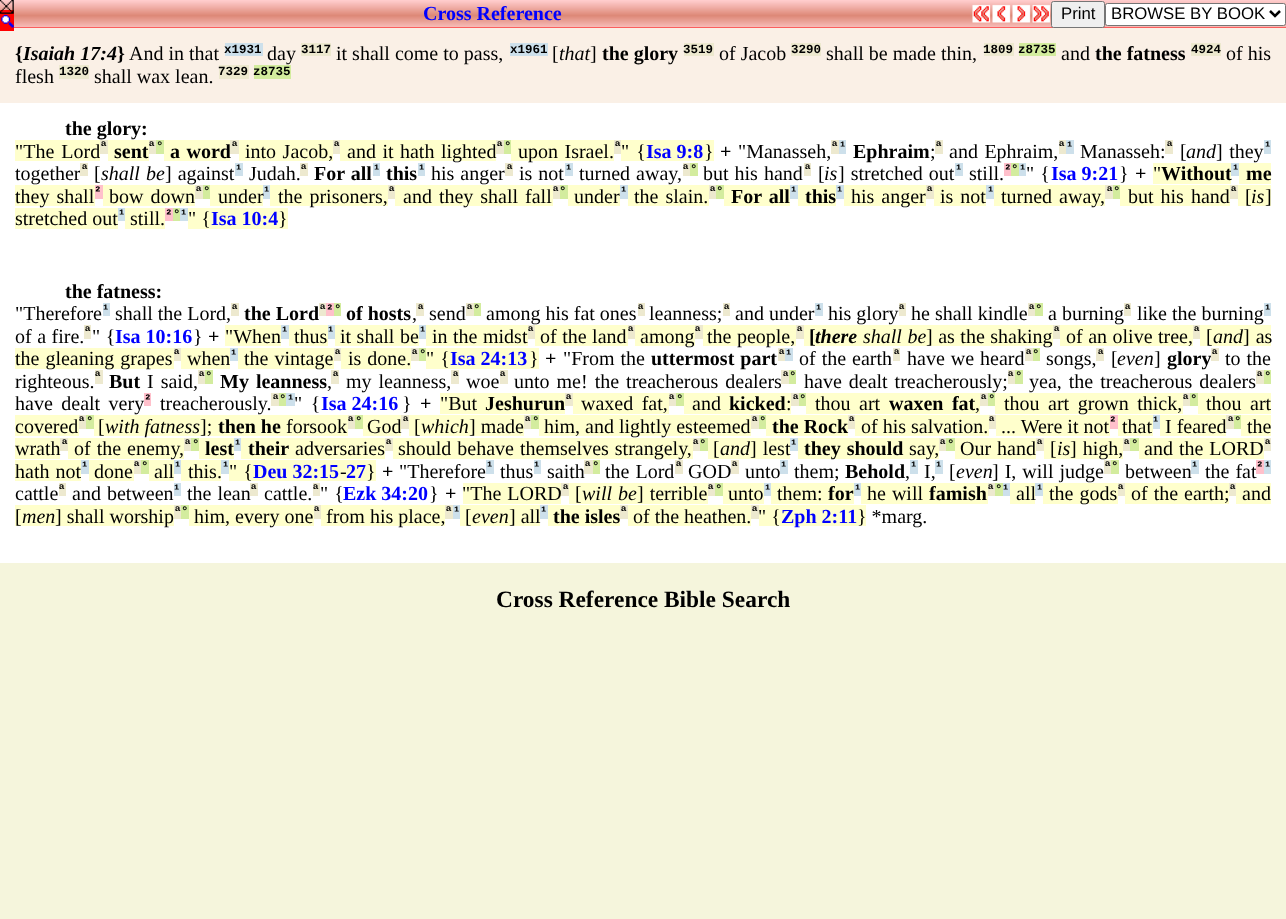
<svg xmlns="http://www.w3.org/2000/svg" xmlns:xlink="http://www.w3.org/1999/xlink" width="1286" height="919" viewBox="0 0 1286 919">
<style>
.cls-1{font:bold 20px Liberation Serif;fill:#0000ff}
.cls-2{font:16.75px Liberation Sans;fill:#000000}
.cls-3{font:bold 20px Liberation Serif;fill:#000000}
.cls-4{font:italic bold 20px Liberation Serif;fill:#000000}
.cls-5{font:20px Liberation Serif;fill:#000000}
.cls-6{font:bold 12.5px Liberation Mono;fill:#000000}
.cls-7{font:italic 20px Liberation Serif;fill:#000000}
.cls-8{font:bold 23.4px Liberation Serif;fill:#000000}
</style>
<rect width="100%" height="100%" fill="#f5f5dc"/>
<rect fill="#ff0000" x="14" y="27" width="1272" height="1"/>
<image xlink:href="image0.png" x="0" y="0" width="1286" height="28"/>
<rect fill="#faf0e6" x="0" y="28" width="1286" height="75"/>
<rect fill="#ff0000" x="0" y="10" width="14" height="21"/>
<image xlink:href="image1.png" x="0" y="0" width="14" height="28"/>
<image xlink:href="image2.png" x="972" y="4" width="19" height="19"/>
<image xlink:href="image3.png" x="992" y="4" width="19" height="19"/>
<image xlink:href="image4.png" x="1012" y="4" width="19" height="19"/>
<image xlink:href="image5.png" x="1032" y="4" width="19" height="19"/>
<rect fill="#efefef" stroke="#767676" x="1051.5" y="1.5" width="53" height="26" rx="2"/>
<rect fill="#ffffff" stroke="#767676" x="1105.5" y="3.5" width="180" height="22" rx="2"/>
<path fill="none" stroke="#000000" stroke-width="2.5" d="M1270 11L1275 16L1280 11"/>
<rect fill="#cde0eb" x="225" y="43" width="38" height="13"/>
<rect fill="#ede9cf" x="301" y="43" width="30" height="13"/>
<rect fill="#cde0eb" x="510" y="43" width="38" height="13"/>
<rect fill="#ede9cf" x="684" y="43" width="30" height="13"/>
<rect fill="#ede9cf" x="791" y="43" width="30" height="13"/>
<rect fill="#ede9cf" x="984" y="43" width="30" height="13"/>
<rect fill="#d3ec9e" x="1019" y="43" width="37" height="13"/>
<rect fill="#ede9cf" x="1191" y="43" width="30" height="13"/>
<rect fill="#ede9cf" x="59" y="65" width="30" height="14"/>
<rect fill="#ede9cf" x="219" y="65" width="30" height="14"/>
<rect fill="#d3ec9e" x="254" y="65" width="37" height="14"/>
<rect fill="#ffffff" x="0" y="103" width="1286" height="460"/>
<rect fill="#ffffcc" x="15" y="140" width="85" height="21"/>
<rect fill="#ede9cf" x="100" y="140" width="8" height="14"/>
<rect fill="#ffffcc" x="108" y="140" width="41" height="21"/>
<rect fill="#ede9cf" x="149" y="140" width="7" height="14"/>
<rect fill="#d3ec9e" x="156" y="140" width="8" height="14"/>
<rect fill="#ffffcc" x="164" y="140" width="66" height="21"/>
<rect fill="#ffffcc" x="239" y="140" width="94" height="21"/>
<rect fill="#ede9cf" x="333" y="140" width="7" height="14"/>
<rect fill="#ffffcc" x="340" y="140" width="156" height="21"/>
<rect fill="#d3ec9e" x="504" y="140" width="7" height="14"/>
<rect fill="#ffffcc" x="511" y="140" width="103" height="21"/>
<rect fill="#ede9cf" x="614" y="140" width="7" height="14"/>
<rect fill="#ffffcc" x="621" y="140" width="93" height="21"/>
<rect fill="#ede9cf" x="831" y="140" width="8" height="14"/>
<rect fill="#cde0eb" x="839" y="140" width="7" height="14"/>
<rect fill="#ede9cf" x="935" y="140" width="8" height="14"/>
<rect fill="#ede9cf" x="1059" y="140" width="7" height="14"/>
<rect fill="#cde0eb" x="1066" y="140" width="8" height="14"/>
<rect fill="#ede9cf" x="1165" y="140" width="8" height="14"/>
<rect fill="#cde0eb" x="1264" y="140" width="7" height="14"/>
<rect fill="#cde0eb" x="235" y="163" width="8" height="13"/>
<rect fill="#ede9cf" x="300" y="163" width="8" height="13"/>
<rect fill="#cde0eb" x="373" y="163" width="7" height="13"/>
<rect fill="#cde0eb" x="418" y="163" width="7" height="13"/>
<rect fill="#cde0eb" x="565" y="163" width="8" height="13"/>
<rect fill="#ede9cf" x="683" y="163" width="7" height="13"/>
<rect fill="#d3ec9e" x="690" y="163" width="8" height="13"/>
<rect fill="#ede9cf" x="804" y="163" width="7" height="13"/>
<rect fill="#cde0eb" x="955" y="163" width="8" height="13"/>
<rect fill="#ffc0cb" x="1004" y="163" width="7" height="13"/>
<rect fill="#d3ec9e" x="1011" y="163" width="8" height="13"/>
<rect fill="#cde0eb" x="1019" y="163" width="7" height="13"/>
<rect fill="#ffffcc" x="1153" y="163" width="78" height="21"/>
<rect fill="#ffffcc" x="1239" y="163" width="32" height="21"/>
<rect fill="#ffffcc" x="15" y="185" width="80" height="21"/>
<rect fill="#ffc0cb" x="95" y="185" width="8" height="14"/>
<rect fill="#ffffcc" x="103" y="185" width="92" height="21"/>
<rect fill="#ede9cf" x="195" y="185" width="8" height="14"/>
<rect fill="#d3ec9e" x="203" y="185" width="7" height="14"/>
<rect fill="#ffffcc" x="210" y="185" width="53" height="21"/>
<rect fill="#cde0eb" x="263" y="185" width="7" height="14"/>
<rect fill="#ffffcc" x="270" y="185" width="118" height="21"/>
<rect fill="#ede9cf" x="388" y="185" width="7" height="14"/>
<rect fill="#ffffcc" x="395" y="185" width="158" height="21"/>
<rect fill="#ede9cf" x="553" y="185" width="7" height="14"/>
<rect fill="#d3ec9e" x="560" y="185" width="8" height="14"/>
<rect fill="#ffffcc" x="568" y="185" width="52" height="21"/>
<rect fill="#cde0eb" x="620" y="185" width="8" height="14"/>
<rect fill="#ffffcc" x="628" y="185" width="81" height="21"/>
<rect fill="#ede9cf" x="709" y="185" width="7" height="14"/>
<rect fill="#d3ec9e" x="716" y="185" width="8" height="14"/>
<rect fill="#ffffcc" x="724" y="185" width="66" height="21"/>
<rect fill="#cde0eb" x="790" y="185" width="8" height="14"/>
<rect fill="#ffffcc" x="798" y="185" width="38" height="21"/>
<rect fill="#cde0eb" x="836" y="185" width="8" height="14"/>
<rect fill="#ffffcc" x="844" y="185" width="82" height="21"/>
<rect fill="#ede9cf" x="926" y="185" width="8" height="14"/>
<rect fill="#ffffcc" x="934" y="185" width="52" height="21"/>
<rect fill="#ffffcc" x="994" y="185" width="111" height="21"/>
<rect fill="#ede9cf" x="1105" y="185" width="8" height="14"/>
<rect fill="#d3ec9e" x="1113" y="185" width="7" height="14"/>
<rect fill="#ffffcc" x="1120" y="185" width="110" height="21"/>
<rect fill="#ede9cf" x="1230" y="185" width="8" height="14"/>
<rect fill="#ffffcc" x="1238" y="185" width="33" height="21"/>
<rect fill="#ffffcc" x="15" y="208" width="103" height="21"/>
<rect fill="#cde0eb" x="118" y="208" width="7" height="13"/>
<rect fill="#ffffcc" x="125" y="208" width="40" height="21"/>
<rect fill="#ffc0cb" x="165" y="208" width="8" height="13"/>
<rect fill="#d3ec9e" x="173" y="208" width="7" height="13"/>
<rect fill="#cde0eb" x="180" y="208" width="8" height="13"/>
<rect fill="#ffffcc" x="188" y="208" width="100" height="21"/>
<rect fill="#cde0eb" x="103" y="303" width="7" height="13"/>
<rect fill="#ede9cf" x="231" y="303" width="8" height="13"/>
<rect fill="#ede9cf" x="319" y="303" width="7" height="13"/>
<rect fill="#ffc0cb" x="326" y="303" width="8" height="13"/>
<rect fill="#d3ec9e" x="334" y="303" width="7" height="13"/>
<rect fill="#ede9cf" x="416" y="303" width="8" height="13"/>
<rect fill="#ede9cf" x="466" y="303" width="8" height="13"/>
<rect fill="#d3ec9e" x="474" y="303" width="7" height="13"/>
<rect fill="#ede9cf" x="638" y="303" width="7" height="13"/>
<rect fill="#ede9cf" x="723" y="303" width="7" height="13"/>
<rect fill="#cde0eb" x="815" y="303" width="8" height="13"/>
<rect fill="#ede9cf" x="899" y="303" width="7" height="13"/>
<rect fill="#ede9cf" x="1028" y="303" width="7" height="13"/>
<rect fill="#d3ec9e" x="1035" y="303" width="8" height="13"/>
<rect fill="#ede9cf" x="1124" y="303" width="7" height="13"/>
<rect fill="#cde0eb" x="1264" y="303" width="7" height="13"/>
<rect fill="#ede9cf" x="84" y="325" width="7" height="14"/>
<rect fill="#ffffcc" x="225" y="325" width="56" height="21"/>
<rect fill="#cde0eb" x="281" y="325" width="8" height="14"/>
<rect fill="#ffffcc" x="289" y="325" width="39" height="21"/>
<rect fill="#cde0eb" x="328" y="325" width="7" height="14"/>
<rect fill="#ffffcc" x="335" y="325" width="84" height="21"/>
<rect fill="#cde0eb" x="419" y="325" width="7" height="14"/>
<rect fill="#ffffcc" x="426" y="325" width="102" height="21"/>
<rect fill="#ede9cf" x="528" y="325" width="7" height="14"/>
<rect fill="#ffffcc" x="535" y="325" width="93" height="21"/>
<rect fill="#ffffcc" x="635" y="325" width="60" height="21"/>
<rect fill="#ede9cf" x="628" y="325" width="7" height="14"/>
<rect fill="#ede9cf" x="695" y="325" width="8" height="14"/>
<rect fill="#ffffcc" x="703" y="325" width="93" height="21"/>
<rect fill="#ede9cf" x="796" y="325" width="8" height="14"/>
<rect fill="#ffffcc" x="804" y="325" width="249" height="21"/>
<rect fill="#ede9cf" x="1053" y="325" width="7" height="14"/>
<rect fill="#ffffcc" x="1060" y="325" width="133" height="21"/>
<rect fill="#ede9cf" x="1193" y="325" width="7" height="14"/>
<rect fill="#ffffcc" x="1200" y="325" width="71" height="21"/>
<rect fill="#ffffcc" x="15" y="348" width="159" height="21"/>
<rect fill="#ede9cf" x="174" y="348" width="7" height="13"/>
<rect fill="#ffffcc" x="181" y="348" width="49" height="21"/>
<rect fill="#ffffcc" x="238" y="348" width="96" height="21"/>
<rect fill="#ede9cf" x="334" y="348" width="7" height="13"/>
<rect fill="#ffffcc" x="341" y="348" width="70" height="21"/>
<rect fill="#ede9cf" x="411" y="348" width="8" height="13"/>
<rect fill="#d3ec9e" x="419" y="348" width="7" height="13"/>
<rect fill="#ffffcc" x="426" y="348" width="113" height="21"/>
<rect fill="#ede9cf" x="778" y="348" width="7" height="13"/>
<rect fill="#cde0eb" x="785" y="348" width="8" height="13"/>
<rect fill="#ede9cf" x="893" y="348" width="7" height="13"/>
<rect fill="#ede9cf" x="1025" y="348" width="8" height="13"/>
<rect fill="#d3ec9e" x="1033" y="348" width="7" height="13"/>
<rect fill="#ede9cf" x="1096" y="348" width="8" height="13"/>
<rect fill="#ede9cf" x="95" y="370" width="8" height="14"/>
<rect fill="#ede9cf" x="198" y="370" width="7" height="14"/>
<rect fill="#d3ec9e" x="205" y="370" width="8" height="14"/>
<rect fill="#ede9cf" x="331" y="370" width="8" height="14"/>
<rect fill="#ede9cf" x="451" y="370" width="8" height="14"/>
<rect fill="#ede9cf" x="500" y="370" width="8" height="14"/>
<rect fill="#ede9cf" x="781" y="370" width="8" height="14"/>
<rect fill="#d3ec9e" x="789" y="370" width="7" height="14"/>
<rect fill="#ede9cf" x="1008" y="370" width="7" height="14"/>
<rect fill="#d3ec9e" x="1015" y="370" width="8" height="14"/>
<rect fill="#ede9cf" x="1256" y="370" width="8" height="14"/>
<rect fill="#d3ec9e" x="1264" y="370" width="7" height="14"/>
<rect fill="#ede9cf" x="271" y="393" width="8" height="13"/>
<rect fill="#d3ec9e" x="279" y="393" width="7" height="13"/>
<rect fill="#cde0eb" x="286" y="393" width="9" height="13"/>
<rect fill="#ffffcc" x="440" y="393" width="125" height="21"/>
<rect fill="#ffffcc" x="573" y="393" width="96" height="21"/>
<rect fill="#ede9cf" x="669" y="393" width="7" height="13"/>
<rect fill="#d3ec9e" x="676" y="393" width="8" height="13"/>
<rect fill="#ffffcc" x="684" y="393" width="107" height="21"/>
<rect fill="#ede9cf" x="791" y="393" width="8" height="13"/>
<rect fill="#d3ec9e" x="799" y="393" width="7" height="13"/>
<rect fill="#ffffcc" x="806" y="393" width="174" height="21"/>
<rect fill="#ede9cf" x="980" y="393" width="8" height="13"/>
<rect fill="#d3ec9e" x="988" y="393" width="7" height="13"/>
<rect fill="#ffffcc" x="995" y="393" width="188" height="21"/>
<rect fill="#ede9cf" x="1183" y="393" width="7" height="13"/>
<rect fill="#d3ec9e" x="1190" y="393" width="8" height="13"/>
<rect fill="#ffffcc" x="1198" y="393" width="73" height="21"/>
<rect fill="#ffffcc" x="15" y="415" width="64" height="21"/>
<rect fill="#ede9cf" x="79" y="415" width="7" height="14"/>
<rect fill="#d3ec9e" x="86" y="415" width="8" height="14"/>
<rect fill="#ffffcc" x="94" y="415" width="254" height="21"/>
<rect fill="#ede9cf" x="348" y="415" width="7" height="14"/>
<rect fill="#d3ec9e" x="355" y="415" width="8" height="14"/>
<rect fill="#ffffcc" x="363" y="415" width="38" height="21"/>
<rect fill="#ffffcc" x="409" y="415" width="115" height="21"/>
<rect fill="#ede9cf" x="524" y="415" width="7" height="14"/>
<rect fill="#d3ec9e" x="531" y="415" width="8" height="14"/>
<rect fill="#ffffcc" x="539" y="415" width="212" height="21"/>
<rect fill="#d3ec9e" x="759" y="415" width="7" height="14"/>
<rect fill="#ffffcc" x="766" y="415" width="82" height="21"/>
<rect fill="#ede9cf" x="848" y="415" width="7" height="14"/>
<rect fill="#ffffcc" x="855" y="415" width="134" height="21"/>
<rect fill="#ede9cf" x="989" y="415" width="7" height="14"/>
<rect fill="#ffffcc" x="996" y="415" width="114" height="21"/>
<rect fill="#ffc0cb" x="1110" y="415" width="8" height="14"/>
<rect fill="#ffffcc" x="1118" y="415" width="35" height="21"/>
<rect fill="#cde0eb" x="1153" y="415" width="7" height="14"/>
<rect fill="#ffffcc" x="1160" y="415" width="66" height="21"/>
<rect fill="#d3ec9e" x="1234" y="415" width="7" height="14"/>
<rect fill="#ffffcc" x="1241" y="415" width="30" height="21"/>
<rect fill="#ffffcc" x="15" y="438" width="45" height="21"/>
<rect fill="#ffffcc" x="68" y="438" width="116" height="21"/>
<rect fill="#ede9cf" x="184" y="438" width="7" height="13"/>
<rect fill="#d3ec9e" x="191" y="438" width="8" height="13"/>
<rect fill="#ffffcc" x="199" y="438" width="35" height="21"/>
<rect fill="#cde0eb" x="234" y="438" width="7" height="13"/>
<rect fill="#ffffcc" x="241" y="438" width="144" height="21"/>
<rect fill="#ede9cf" x="385" y="438" width="8" height="13"/>
<rect fill="#ffffcc" x="393" y="438" width="300" height="21"/>
<rect fill="#ede9cf" x="693" y="438" width="7" height="13"/>
<rect fill="#d3ec9e" x="700" y="438" width="8" height="13"/>
<rect fill="#ffffcc" x="708" y="438" width="82" height="21"/>
<rect fill="#cde0eb" x="790" y="438" width="8" height="13"/>
<rect fill="#ffffcc" x="798" y="438" width="141" height="21"/>
<rect fill="#ede9cf" x="939" y="438" width="7" height="13"/>
<rect fill="#d3ec9e" x="946" y="438" width="9" height="13"/>
<rect fill="#ffffcc" x="955" y="438" width="81" height="21"/>
<rect fill="#ffffcc" x="1044" y="438" width="79" height="21"/>
<rect fill="#ede9cf" x="1123" y="438" width="7" height="13"/>
<rect fill="#d3ec9e" x="1130" y="438" width="9" height="13"/>
<rect fill="#ffffcc" x="1139" y="438" width="125" height="21"/>
<rect fill="#ede9cf" x="1264" y="438" width="7" height="13"/>
<rect fill="#ffffcc" x="15" y="460" width="66" height="21"/>
<rect fill="#cde0eb" x="81" y="460" width="8" height="14"/>
<rect fill="#ffffcc" x="89" y="460" width="45" height="21"/>
<rect fill="#ede9cf" x="134" y="460" width="7" height="14"/>
<rect fill="#d3ec9e" x="141" y="460" width="8" height="14"/>
<rect fill="#ffffcc" x="149" y="460" width="25" height="21"/>
<rect fill="#cde0eb" x="174" y="460" width="7" height="14"/>
<rect fill="#ffffcc" x="181" y="460" width="40" height="21"/>
<rect fill="#cde0eb" x="221" y="460" width="8" height="14"/>
<rect fill="#ffffcc" x="229" y="460" width="147" height="21"/>
<rect fill="#cde0eb" x="486" y="460" width="8" height="14"/>
<rect fill="#cde0eb" x="534" y="460" width="7" height="14"/>
<rect fill="#d3ec9e" x="593" y="460" width="7" height="14"/>
<rect fill="#ede9cf" x="675" y="460" width="8" height="14"/>
<rect fill="#ede9cf" x="731" y="460" width="8" height="14"/>
<rect fill="#cde0eb" x="780" y="460" width="8" height="14"/>
<rect fill="#cde0eb" x="910" y="460" width="8" height="14"/>
<rect fill="#cde0eb" x="935" y="460" width="8" height="14"/>
<rect fill="#ede9cf" x="1104" y="460" width="7" height="14"/>
<rect fill="#d3ec9e" x="1111" y="460" width="8" height="14"/>
<rect fill="#cde0eb" x="1264" y="460" width="7" height="14"/>
<rect fill="#ede9cf" x="59" y="483" width="7" height="13"/>
<rect fill="#cde0eb" x="174" y="483" width="7" height="13"/>
<rect fill="#ede9cf" x="250" y="483" width="8" height="13"/>
<rect fill="#ede9cf" x="313" y="483" width="7" height="13"/>
<rect fill="#ffffcc" x="463" y="483" width="98" height="21"/>
<rect fill="#ede9cf" x="561" y="483" width="8" height="13"/>
<rect fill="#ffffcc" x="569" y="483" width="139" height="21"/>
<rect fill="#ede9cf" x="708" y="483" width="7" height="13"/>
<rect fill="#d3ec9e" x="715" y="483" width="8" height="13"/>
<rect fill="#ffffcc" x="723" y="483" width="41" height="21"/>
<rect fill="#cde0eb" x="764" y="483" width="7" height="13"/>
<rect fill="#ffffcc" x="771" y="483" width="83" height="21"/>
<rect fill="#cde0eb" x="854" y="483" width="7" height="13"/>
<rect fill="#ffffcc" x="861" y="483" width="127" height="21"/>
<rect fill="#ede9cf" x="988" y="483" width="7" height="13"/>
<rect fill="#d3ec9e" x="995" y="483" width="8" height="13"/>
<rect fill="#cde0eb" x="1003" y="483" width="7" height="13"/>
<rect fill="#ffffcc" x="1010" y="483" width="25" height="21"/>
<rect fill="#ffffcc" x="1043" y="483" width="75" height="21"/>
<rect fill="#ede9cf" x="1118" y="483" width="7" height="13"/>
<rect fill="#ffffcc" x="1125" y="483" width="104" height="21"/>
<rect fill="#ede9cf" x="1229" y="483" width="7" height="13"/>
<rect fill="#ffffcc" x="1236" y="483" width="35" height="21"/>
<rect fill="#ffffcc" x="15" y="505" width="159" height="21"/>
<rect fill="#ede9cf" x="174" y="505" width="7" height="14"/>
<rect fill="#d3ec9e" x="181" y="505" width="8" height="14"/>
<rect fill="#ffffcc" x="189" y="505" width="125" height="21"/>
<rect fill="#ede9cf" x="314" y="505" width="7" height="14"/>
<rect fill="#ffffcc" x="321" y="505" width="124" height="21"/>
<rect fill="#ede9cf" x="445" y="505" width="8" height="14"/>
<rect fill="#cde0eb" x="453" y="505" width="7" height="14"/>
<rect fill="#ffffcc" x="460" y="505" width="80" height="21"/>
<rect fill="#cde0eb" x="540" y="505" width="8" height="14"/>
<rect fill="#ffffcc" x="548" y="505" width="72" height="21"/>
<rect fill="#ede9cf" x="620" y="505" width="8" height="14"/>
<rect fill="#ffffcc" x="628" y="505" width="123" height="21"/>
<rect fill="#ede9cf" x="751" y="505" width="8" height="14"/>
<rect fill="#ffffcc" x="759" y="505" width="107" height="21"/>
<text class="cls-1" x="423" y="20">Cross Reference</text>
<text class="cls-2" x="1061" y="19">Print</text>
<text class="cls-2" x="1111" y="19">BROWSE BY BOOK</text>
<text class="cls-3" x="15" y="60">{</text>
<text class="cls-4" x="23" y="60">Isaiah 17:4</text>
<text class="cls-3" x="117" y="60">}</text>
<text class="cls-5" x="129" y="60">And in that</text>
<text class="cls-6" x="224" y="53">x1931</text>
<text class="cls-5" x="267" y="60">day</text>
<text class="cls-6" x="301" y="53">3117</text>
<text class="cls-5" x="336" y="60">it shall come to pass,</text>
<text class="cls-6" x="510" y="53">x1961</text>
<text class="cls-5" x="552" y="60">[</text>
<text class="cls-7" x="559" y="60">that</text>
<text class="cls-5" x="590" y="60">]</text>
<text class="cls-3" x="602" y="60">the glory</text>
<text class="cls-6" x="683" y="53">3519</text>
<text class="cls-5" x="719" y="60">of Jacob</text>
<text class="cls-6" x="791" y="53">3290</text>
<text class="cls-5" x="826" y="60">shall be made thin,</text>
<text class="cls-6" x="983" y="53">1809</text>
<text class="cls-6" x="1018" y="53">z8735</text>
<text class="cls-5" x="1061" y="60">and</text>
<text class="cls-3" x="1095" y="60">the fatness</text>
<text class="cls-6" x="1191" y="53">4924</text>
<text class="cls-5" x="1226" y="60">of his</text>
<text class="cls-5" x="15" y="83">flesh</text>
<text class="cls-6" x="59" y="75">1320</text>
<text class="cls-5" x="94" y="83">shall wax lean.</text>
<text class="cls-6" x="218" y="75">7329</text>
<text class="cls-6" x="253" y="75">z8735</text>
<text class="cls-3" x="65" y="135">the glory:</text>
<text class="cls-5" x="15" y="158" word-spacing="2">"The Lord</text>
<text class="cls-6" x="100" y="150">ª</text>
<text class="cls-3" x="114" y="158">sent</text>
<text class="cls-6" x="148" y="150">ª</text>
<text class="cls-6" x="156" y="150">°</text>
<text class="cls-3" x="170" y="158" word-spacing="1.5">a word</text>
<rect fill="#ede9cf" x="230" y="140" width="9" height="14"/>
<text class="cls-6" x="231" y="150">ª</text>
<text class="cls-5" x="245" y="158" word-spacing="1.5">into Jacob,</text>
<text class="cls-6" x="333" y="150">ª</text>
<text class="cls-5" x="347" y="158" word-spacing="1.5">and it hath lighted</text>
<rect fill="#ede9cf" x="496" y="140" width="8" height="14"/>
<text class="cls-6" x="496" y="150">ª</text>
<text class="cls-6" x="504" y="150">°</text>
<text class="cls-5" x="518" y="158" word-spacing="1.5">upon Israel.</text>
<text class="cls-6" x="614" y="150">ª</text>
<text class="cls-5" x="621" y="158" word-spacing="2">" {</text>
<text class="cls-1" x="646" y="158">Isa 9:8</text>
<text class="cls-5" x="704" y="158">}</text>
<text class="cls-3" x="720" y="158">+</text>
<text class="cls-5" x="738" y="158">"Manasseh,</text>
<text class="cls-6" x="831" y="150">ª</text>
<text class="cls-6" x="839" y="150">¹</text>
<text class="cls-3" x="853" y="158">Ephraim</text>
<text class="cls-5" x="930" y="158">;</text>
<text class="cls-6" x="935" y="150">ª</text>
<text class="cls-5" x="949" y="158" word-spacing="1.5">and Ephraim,</text>
<text class="cls-6" x="1058" y="150">ª</text>
<text class="cls-6" x="1066" y="150">¹</text>
<text class="cls-5" x="1080" y="158">Manasseh:</text>
<text class="cls-6" x="1166" y="150">ª</text>
<text class="cls-5" x="1180" y="158">[</text>
<text class="cls-7" x="1186" y="158">and</text>
<text class="cls-5" x="1216" y="158" word-spacing="1.5">] they</text>
<text class="cls-6" x="1264" y="150">¹</text>
<text class="cls-5" x="15" y="180">together</text>
<rect fill="#ede9cf" x="80" y="163" width="8" height="13"/>
<text class="cls-6" x="81" y="173">ª</text>
<text class="cls-5" x="94" y="180">[</text>
<text class="cls-7" x="101" y="180" word-spacing="1">shall be</text>
<text class="cls-5" x="165" y="180" word-spacing="1">] against</text>
<text class="cls-6" x="235" y="173">¹</text>
<text class="cls-5" x="249" y="180">Judah.</text>
<text class="cls-6" x="300" y="173">ª</text>
<text class="cls-3" x="314" y="180" word-spacing="1">For all</text>
<text class="cls-6" x="373" y="173">¹</text>
<text class="cls-3" x="386" y="180">this</text>
<text class="cls-6" x="418" y="173">¹</text>
<text class="cls-5" x="431" y="180" word-spacing="1">his anger</text>
<rect fill="#ede9cf" x="505" y="163" width="8" height="13"/>
<text class="cls-6" x="506" y="173">ª</text>
<text class="cls-5" x="519" y="180" word-spacing="1">is not</text>
<text class="cls-6" x="565" y="173">¹</text>
<text class="cls-5" x="579" y="180" word-spacing="1">turned away,</text>
<text class="cls-6" x="682" y="173">ª</text>
<text class="cls-6" x="690" y="173">°</text>
<text class="cls-5" x="703" y="180" word-spacing="1">but his hand</text>
<text class="cls-6" x="804" y="173">ª</text>
<text class="cls-5" x="818" y="180">[</text>
<text class="cls-7" x="824" y="180">is</text>
<text class="cls-5" x="838" y="180" word-spacing="1">] stretched out</text>
<text class="cls-6" x="955" y="173">¹</text>
<text class="cls-5" x="969" y="180">still.</text>
<text class="cls-6" x="1004" y="173">²</text>
<text class="cls-6" x="1011" y="173">°</text>
<text class="cls-6" x="1019" y="173">¹</text>
<text class="cls-5" x="1026" y="180" word-spacing="1">" {</text>
<text class="cls-1" x="1051" y="180">Isa 9:21</text>
<text class="cls-5" x="1119" y="180">}</text>
<text class="cls-3" x="1135" y="180">+</text>
<text class="cls-5" x="1153" y="180">"</text>
<text class="cls-3" x="1161" y="180">Without</text>
<rect fill="#cde0eb" x="1231" y="163" width="8" height="13"/>
<text class="cls-6" x="1232" y="173">¹</text>
<text class="cls-3" x="1246" y="180">me</text>
<text class="cls-5" x="15" y="203" word-spacing="2">they shall</text>
<text class="cls-6" x="94" y="195">²</text>
<text class="cls-5" x="109" y="203" word-spacing="2">bow down</text>
<text class="cls-6" x="195" y="195">ª</text>
<text class="cls-6" x="203" y="195">°</text>
<text class="cls-5" x="218" y="203">under</text>
<text class="cls-6" x="263" y="195">¹</text>
<text class="cls-5" x="278" y="203" word-spacing="2">the prisoners,</text>
<text class="cls-6" x="388" y="195">ª</text>
<text class="cls-5" x="403" y="203" word-spacing="2">and they shall fall</text>
<text class="cls-6" x="552" y="195">ª</text>
<text class="cls-6" x="559" y="195">°</text>
<text class="cls-5" x="574" y="203">under</text>
<text class="cls-6" x="620" y="195">¹</text>
<text class="cls-5" x="634" y="203" word-spacing="2">the slain.</text>
<text class="cls-6" x="709" y="195">ª</text>
<text class="cls-6" x="716" y="195">°</text>
<text class="cls-3" x="731" y="203" word-spacing="2">For all</text>
<text class="cls-6" x="790" y="195">¹</text>
<text class="cls-3" x="805" y="203">this</text>
<text class="cls-6" x="836" y="195">¹</text>
<text class="cls-5" x="851" y="203" word-spacing="2">his anger</text>
<text class="cls-6" x="926" y="195">ª</text>
<text class="cls-5" x="940" y="203" word-spacing="2">is not</text>
<rect fill="#cde0eb" x="986" y="185" width="8" height="14"/>
<text class="cls-6" x="987" y="195">¹</text>
<text class="cls-5" x="1001" y="203" word-spacing="2">turned away,</text>
<text class="cls-6" x="1106" y="195">ª</text>
<text class="cls-6" x="1113" y="195">°</text>
<text class="cls-5" x="1128" y="203" word-spacing="2">but his hand</text>
<text class="cls-6" x="1230" y="195">ª</text>
<text class="cls-5" x="1245" y="203">[</text>
<text class="cls-7" x="1251" y="203">is</text>
<text class="cls-5" x="1265" y="203">]</text>
<text class="cls-5" x="15" y="225">stretched out</text>
<text class="cls-6" x="118" y="218">¹</text>
<text class="cls-5" x="130" y="225">still.</text>
<text class="cls-6" x="165" y="218">²</text>
<text class="cls-6" x="173" y="218">°</text>
<text class="cls-6" x="180" y="218">¹</text>
<text class="cls-5" x="188" y="225">" {</text>
<text class="cls-1" x="211" y="225">Isa 10:4</text>
<text class="cls-5" x="278" y="225">}</text>
<text class="cls-3" x="65" y="298">the fatness:</text>
<text class="cls-5" x="15" y="320">"Therefore</text>
<text class="cls-6" x="102" y="313">¹</text>
<text class="cls-5" x="115" y="320">shall the Lord,</text>
<text class="cls-6" x="231" y="313">ª</text>
<text class="cls-3" x="244" y="320">the Lord</text>
<text class="cls-6" x="319" y="313">ª</text>
<text class="cls-6" x="326" y="313">²</text>
<text class="cls-6" x="334" y="313">°</text>
<text class="cls-3" x="346" y="320">of hosts</text>
<text class="cls-5" x="412" y="320">,</text>
<text class="cls-6" x="417" y="313">ª</text>
<text class="cls-5" x="429" y="320">send</text>
<text class="cls-6" x="466" y="313">ª</text>
<text class="cls-6" x="473" y="313">°</text>
<text class="cls-5" x="486" y="320">among his fat ones</text>
<text class="cls-6" x="637" y="313">ª</text>
<text class="cls-5" x="649" y="320">leanness;</text>
<text class="cls-6" x="723" y="313">ª</text>
<text class="cls-5" x="735" y="320">and under</text>
<text class="cls-6" x="815" y="313">¹</text>
<text class="cls-5" x="828" y="320">his glory</text>
<text class="cls-6" x="898" y="313">ª</text>
<text class="cls-5" x="911" y="320">he shall kindle</text>
<text class="cls-6" x="1028" y="313">ª</text>
<text class="cls-6" x="1035" y="313">°</text>
<text class="cls-5" x="1048" y="320">a burning</text>
<text class="cls-6" x="1124" y="313">ª</text>
<text class="cls-5" x="1137" y="320">like the burning</text>
<text class="cls-6" x="1264" y="313">¹</text>
<text class="cls-5" x="15" y="343" word-spacing="0.5">of a fire.</text>
<text class="cls-6" x="84" y="335">ª</text>
<text class="cls-5" x="92" y="343" word-spacing="0.5">" {</text>
<text class="cls-1" x="115" y="343">Isa 10:16</text>
<text class="cls-5" x="193" y="343">}</text>
<text class="cls-3" x="208" y="343">+</text>
<text class="cls-5" x="225" y="343">"When</text>
<text class="cls-6" x="281" y="335">¹</text>
<text class="cls-5" x="294" y="343">thus</text>
<text class="cls-6" x="327" y="335">¹</text>
<text class="cls-5" x="340" y="343" word-spacing="0.5">it shall be</text>
<text class="cls-6" x="419" y="335">¹</text>
<text class="cls-5" x="432" y="343" word-spacing="0.5">in the midst</text>
<text class="cls-6" x="527" y="335">ª</text>
<text class="cls-5" x="540" y="343" word-spacing="0.5">of the land</text>
<text class="cls-6" x="627" y="335">ª</text>
<text class="cls-5" x="640" y="343">among</text>
<text class="cls-6" x="694" y="335">ª</text>
<text class="cls-5" x="707" y="343" word-spacing="0.5">the people,</text>
<text class="cls-6" x="796" y="335">ª</text>
<text class="cls-3" x="809" y="343">[</text>
<text class="cls-4" x="815" y="343">there</text>
<text class="cls-7" x="863" y="343" word-spacing="0.5">shall be</text>
<text class="cls-5" x="926" y="343" word-spacing="0.5">] as the shaking</text>
<text class="cls-6" x="1053" y="335">ª</text>
<text class="cls-5" x="1066" y="343" word-spacing="0.5">of an olive tree,</text>
<text class="cls-6" x="1193" y="335">ª</text>
<text class="cls-5" x="1206" y="343">[</text>
<text class="cls-7" x="1213" y="343">and</text>
<text class="cls-5" x="1243" y="343" word-spacing="1">] as</text>
<text class="cls-5" x="15" y="365" word-spacing="1">the gleaning grapes</text>
<text class="cls-6" x="173" y="358">ª</text>
<text class="cls-5" x="187" y="365">when</text>
<rect fill="#cde0eb" x="230" y="348" width="8" height="13"/>
<text class="cls-6" x="230" y="358">¹</text>
<text class="cls-5" x="244" y="365" word-spacing="1">the vintage</text>
<text class="cls-6" x="334" y="358">ª</text>
<text class="cls-5" x="348" y="365" word-spacing="1">is done.</text>
<text class="cls-6" x="411" y="358">ª</text>
<text class="cls-6" x="419" y="358">°</text>
<text class="cls-5" x="426" y="365" word-spacing="1">" {</text>
<text class="cls-1" x="450" y="365">Isa 24:13</text>
<text class="cls-5" x="529" y="365">}</text>
<text class="cls-3" x="545" y="365">+</text>
<text class="cls-5" x="563" y="365" word-spacing="1">"From the</text>
<text class="cls-3" x="651" y="365" word-spacing="1">uttermost part</text>
<text class="cls-6" x="778" y="358">ª</text>
<text class="cls-6" x="785" y="358">¹</text>
<text class="cls-5" x="799" y="365" word-spacing="1">of the earth</text>
<text class="cls-6" x="893" y="358">ª</text>
<text class="cls-5" x="907" y="365" word-spacing="1">have we heard</text>
<text class="cls-6" x="1025" y="358">ª</text>
<text class="cls-6" x="1032" y="358">°</text>
<text class="cls-5" x="1046" y="365">songs,</text>
<text class="cls-6" x="1097" y="358">ª</text>
<text class="cls-5" x="1111" y="365">[</text>
<text class="cls-7" x="1117" y="365">even</text>
<text class="cls-5" x="1154" y="365">]</text>
<text class="cls-3" x="1167" y="365">glory</text>
<rect fill="#ede9cf" x="1211" y="348" width="8" height="13"/>
<text class="cls-6" x="1211" y="358">ª</text>
<text class="cls-5" x="1225" y="365" word-spacing="1">to the</text>
<text class="cls-6" x="94" y="380">ª</text>
<text class="cls-6" x="198" y="380">ª</text>
<text class="cls-6" x="205" y="380">°</text>
<text class="cls-6" x="332" y="380">ª</text>
<text class="cls-6" x="452" y="380">ª</text>
<text class="cls-6" x="499" y="380">ª</text>
<text class="cls-6" x="782" y="380">ª</text>
<text class="cls-6" x="789" y="380">°</text>
<text class="cls-6" x="1007" y="380">ª</text>
<text class="cls-6" x="1015" y="380">°</text>
<text class="cls-6" x="1256" y="380">ª</text>
<text class="cls-6" x="1264" y="380">°</text>
<text class="cls-5" x="15" y="388">righteous.</text>
<text class="cls-3" x="109" y="388">But</text>
<text class="cls-5" x="147" y="388" word-spacing="2">I said,</text>
<text class="cls-3" x="220" y="388" word-spacing="2">My leanness</text>
<text class="cls-5" x="327" y="388">,</text>
<text class="cls-5" x="346" y="388" word-spacing="2">my leanness,</text>
<text class="cls-5" x="466" y="388">woe</text>
<text class="cls-5" x="514" y="388" word-spacing="2">unto me! the treacherous dealers</text>
<text class="cls-5" x="804" y="388" word-spacing="2">have dealt treacherously;</text>
<text class="cls-5" x="1029" y="388" word-spacing="2">yea, the treacherous dealers</text>
<text class="cls-5" x="15" y="410" word-spacing="3.5">have dealt very</text>
<rect fill="#ffc0cb" x="144" y="393" width="7" height="13"/>
<text class="cls-6" x="144" y="403">²</text>
<text class="cls-5" x="160" y="410">treacherously.</text>
<text class="cls-6" x="272" y="403">ª</text>
<text class="cls-6" x="279" y="403">°</text>
<text class="cls-6" x="287" y="403">¹</text>
<text class="cls-5" x="294" y="410" word-spacing="3.5">" {</text>
<text class="cls-1" x="321" y="410">Isa 24:16</text>
<text class="cls-5" x="402" y="410">}</text>
<text class="cls-3" x="420" y="410">+</text>
<text class="cls-5" x="440" y="410">"But</text>
<text class="cls-3" x="485" y="410">Jeshurun</text>
<rect fill="#ede9cf" x="565" y="393" width="8" height="13"/>
<text class="cls-6" x="565" y="403">ª</text>
<text class="cls-5" x="581" y="410" word-spacing="3.5">waxed fat,</text>
<text class="cls-6" x="668" y="403">ª</text>
<text class="cls-6" x="676" y="403">°</text>
<text class="cls-5" x="692" y="410">and</text>
<text class="cls-3" x="729" y="410">kicked</text>
<text class="cls-5" x="786" y="410">:</text>
<text class="cls-6" x="792" y="403">ª</text>
<text class="cls-6" x="799" y="403">°</text>
<text class="cls-5" x="815" y="410" word-spacing="3.5">thou art</text>
<text class="cls-3" x="889" y="410" word-spacing="3.5">waxen fat</text>
<text class="cls-5" x="975" y="410">,</text>
<text class="cls-6" x="980" y="403">ª</text>
<text class="cls-6" x="988" y="403">°</text>
<text class="cls-5" x="1004" y="410" word-spacing="3.5">thou art grown thick,</text>
<text class="cls-6" x="1182" y="403">ª</text>
<text class="cls-6" x="1190" y="403">°</text>
<text class="cls-5" x="1206" y="410" word-spacing="3.5">thou art</text>
<text class="cls-5" x="15" y="433">covered</text>
<text class="cls-6" x="78" y="425">ª</text>
<text class="cls-6" x="86" y="425">°</text>
<text class="cls-5" x="98" y="433">[</text>
<text class="cls-7" x="105" y="433">with fatness</text>
<text class="cls-5" x="200" y="433">];</text>
<text class="cls-3" x="218" y="433">then he</text>
<text class="cls-5" x="286" y="433">forsook</text>
<text class="cls-6" x="347" y="425">ª</text>
<text class="cls-6" x="355" y="425">°</text>
<text class="cls-5" x="367" y="433">God</text>
<rect fill="#ede9cf" x="401" y="415" width="8" height="14"/>
<text class="cls-6" x="402" y="425">ª</text>
<text class="cls-5" x="414" y="433">[</text>
<text class="cls-7" x="421" y="433">which</text>
<text class="cls-5" x="469" y="433">] made</text>
<text class="cls-6" x="524" y="425">ª</text>
<text class="cls-6" x="532" y="425">°</text>
<text class="cls-5" x="544" y="433">him, and lightly esteemed</text>
<rect fill="#ede9cf" x="751" y="415" width="8" height="14"/>
<text class="cls-6" x="751" y="425">ª</text>
<text class="cls-6" x="759" y="425">°</text>
<text class="cls-3" x="772" y="433">the Rock</text>
<text class="cls-6" x="848" y="425">ª</text>
<text class="cls-5" x="861" y="433">of his salvation.</text>
<text class="cls-6" x="988" y="425">ª</text>
<text class="cls-5" x="1001" y="433">... Were it not</text>
<text class="cls-6" x="1109" y="425">²</text>
<text class="cls-5" x="1122" y="433">that</text>
<text class="cls-6" x="1152" y="425">¹</text>
<text class="cls-5" x="1165" y="433">I feared</text>
<rect fill="#ede9cf" x="1226" y="415" width="8" height="14"/>
<text class="cls-6" x="1227" y="425">ª</text>
<text class="cls-6" x="1234" y="425">°</text>
<text class="cls-5" x="1247" y="433">the</text>
<text class="cls-5" x="15" y="455">wrath</text>
<rect fill="#ede9cf" x="60" y="438" width="8" height="13"/>
<text class="cls-6" x="61" y="448">ª</text>
<text class="cls-5" x="74" y="455" word-spacing="1">of the enemy,</text>
<text class="cls-6" x="184" y="448">ª</text>
<text class="cls-6" x="192" y="448">°</text>
<text class="cls-3" x="205" y="455">lest</text>
<text class="cls-6" x="234" y="448">¹</text>
<text class="cls-3" x="248" y="455">their</text>
<text class="cls-5" x="295" y="455">adversaries</text>
<text class="cls-6" x="385" y="448">ª</text>
<text class="cls-5" x="398" y="455" word-spacing="1">should behave themselves strangely,</text>
<text class="cls-6" x="692" y="448">ª</text>
<text class="cls-6" x="699" y="448">°</text>
<text class="cls-5" x="713" y="455">[</text>
<text class="cls-7" x="720" y="455">and</text>
<text class="cls-5" x="750" y="455" word-spacing="1">] lest</text>
<text class="cls-6" x="790" y="448">¹</text>
<text class="cls-3" x="804" y="455" word-spacing="1">they should</text>
<text class="cls-5" x="909" y="455">say,</text>
<text class="cls-6" x="939" y="448">ª</text>
<text class="cls-6" x="947" y="448">°</text>
<text class="cls-5" x="960" y="455" word-spacing="1">Our hand</text>
<rect fill="#ede9cf" x="1036" y="438" width="8" height="13"/>
<text class="cls-6" x="1036" y="448">ª</text>
<text class="cls-5" x="1050" y="455">[</text>
<text class="cls-7" x="1057" y="455">is</text>
<text class="cls-5" x="1070" y="455" word-spacing="1">] high,</text>
<text class="cls-6" x="1123" y="448">ª</text>
<text class="cls-6" x="1131" y="448">°</text>
<text class="cls-5" x="1144" y="455" word-spacing="1">and the LORD</text>
<text class="cls-6" x="1264" y="448">ª</text>
<text class="cls-5" x="15" y="478" word-spacing="1">hath not</text>
<text class="cls-6" x="81" y="470">¹</text>
<text class="cls-5" x="94" y="478">done</text>
<text class="cls-6" x="133" y="470">ª</text>
<text class="cls-6" x="141" y="470">°</text>
<text class="cls-5" x="154" y="478">all</text>
<text class="cls-6" x="174" y="470">¹</text>
<text class="cls-5" x="188" y="478">this.</text>
<text class="cls-6" x="222" y="470">¹</text>
<text class="cls-5" x="229" y="478" word-spacing="1">" {</text>
<text class="cls-1" x="253" y="478">Deu 32:15</text>
<text class="cls-5" x="340" y="478">-</text>
<text class="cls-1" x="346" y="478">27</text>
<text class="cls-5" x="366" y="478">}</text>
<text class="cls-3" x="382" y="478">+</text>
<text class="cls-5" x="399" y="478">"Therefore</text>
<text class="cls-6" x="486" y="470">¹</text>
<text class="cls-5" x="500" y="478">thus</text>
<text class="cls-6" x="533" y="470">¹</text>
<text class="cls-5" x="547" y="478">saith</text>
<rect fill="#ede9cf" x="584" y="460" width="9" height="14"/>
<text class="cls-6" x="584" y="470">ª</text>
<text class="cls-6" x="592" y="470">°</text>
<text class="cls-5" x="605" y="478" word-spacing="1">the Lord</text>
<text class="cls-6" x="675" y="470">ª</text>
<text class="cls-5" x="688" y="478">GOD</text>
<text class="cls-6" x="731" y="470">ª</text>
<text class="cls-5" x="745" y="478">unto</text>
<text class="cls-6" x="780" y="470">¹</text>
<text class="cls-5" x="794" y="478">them;</text>
<text class="cls-3" x="845" y="478">Behold</text>
<text class="cls-6" x="910" y="470">¹</text>
<text class="cls-5" x="924" y="478">I,</text>
<text class="cls-6" x="935" y="470">¹</text>
<text class="cls-5" x="949" y="478">[</text>
<text class="cls-7" x="956" y="478">even</text>
<text class="cls-5" x="992" y="478" word-spacing="1">] I, will judge</text>
<text class="cls-6" x="1104" y="470">ª</text>
<text class="cls-6" x="1111" y="470">°</text>
<text class="cls-5" x="1125" y="478">between</text>
<rect fill="#cde0eb" x="1191" y="460" width="8" height="14"/>
<text class="cls-6" x="1191" y="470">¹</text>
<text class="cls-5" x="1205" y="478" word-spacing="1">the fat</text>
<rect fill="#ffc0cb" x="1256" y="460" width="8" height="14"/>
<text class="cls-6" x="1256" y="470">²</text>
<text class="cls-6" x="1264" y="470">¹</text>
<text class="cls-5" x="905" y="478">,</text>
<text class="cls-5" x="15" y="500">cattle</text>
<text class="cls-6" x="58" y="493">ª</text>
<text class="cls-5" x="72" y="500" word-spacing="1">and between</text>
<text class="cls-6" x="173" y="493">¹</text>
<text class="cls-5" x="187" y="500" word-spacing="1">the lean</text>
<text class="cls-6" x="250" y="493">ª</text>
<text class="cls-5" x="264" y="500">cattle.</text>
<text class="cls-6" x="312" y="493">ª</text>
<text class="cls-5" x="320" y="500" word-spacing="1">" {</text>
<text class="cls-1" x="343" y="500">Ezk 34:20</text>
<text class="cls-5" x="429" y="500">}</text>
<text class="cls-3" x="445" y="500">+</text>
<text class="cls-5" x="462" y="500" word-spacing="1">"The LORD</text>
<text class="cls-6" x="562" y="493">ª</text>
<text class="cls-5" x="575" y="500">[</text>
<text class="cls-7" x="582" y="500" word-spacing="1">will be</text>
<text class="cls-5" x="637" y="500" word-spacing="1">] terrible</text>
<text class="cls-6" x="707" y="493">ª</text>
<text class="cls-6" x="715" y="493">°</text>
<text class="cls-5" x="728" y="500">unto</text>
<text class="cls-6" x="764" y="493">¹</text>
<text class="cls-5" x="777" y="500">them:</text>
<text class="cls-3" x="828" y="500">for</text>
<text class="cls-6" x="854" y="493">¹</text>
<text class="cls-5" x="867" y="500" word-spacing="1">he will</text>
<text class="cls-3" x="929" y="500">famish</text>
<text class="cls-6" x="987" y="493">ª</text>
<text class="cls-6" x="995" y="493">°</text>
<text class="cls-6" x="1002" y="493">¹</text>
<text class="cls-5" x="1016" y="500">all</text>
<rect fill="#cde0eb" x="1035" y="483" width="8" height="13"/>
<text class="cls-6" x="1036" y="493">¹</text>
<text class="cls-5" x="1049" y="500" word-spacing="1">the gods</text>
<text class="cls-6" x="1117" y="493">ª</text>
<text class="cls-5" x="1131" y="500" word-spacing="1">of the earth;</text>
<text class="cls-6" x="1229" y="493">ª</text>
<text class="cls-5" x="1242" y="500">and</text>
<text class="cls-5" x="15" y="523">[</text>
<text class="cls-7" x="22" y="523">men</text>
<text class="cls-5" x="55" y="523">] shall worship</text>
<text class="cls-6" x="174" y="515">ª</text>
<text class="cls-6" x="181" y="515">°</text>
<text class="cls-5" x="194" y="523">him, every one</text>
<text class="cls-6" x="313" y="515">ª</text>
<text class="cls-5" x="326" y="523">from his place,</text>
<text class="cls-6" x="445" y="515">ª</text>
<text class="cls-6" x="453" y="515">¹</text>
<text class="cls-5" x="465" y="523">[</text>
<text class="cls-7" x="472" y="523">even</text>
<text class="cls-5" x="509" y="523">] all</text>
<text class="cls-6" x="540" y="515">¹</text>
<text class="cls-3" x="553" y="523">the isles</text>
<text class="cls-6" x="620" y="515">ª</text>
<text class="cls-5" x="633" y="523">of the heathen.</text>
<text class="cls-6" x="751" y="515">ª</text>
<text class="cls-5" x="758" y="523">" {</text>
<text class="cls-1" x="781" y="523">Zph 2:11</text>
<text class="cls-5" x="857" y="523">} *marg.</text>
<text class="cls-8" x="496" y="607">Cross Reference Bible Search</text>
</svg>
